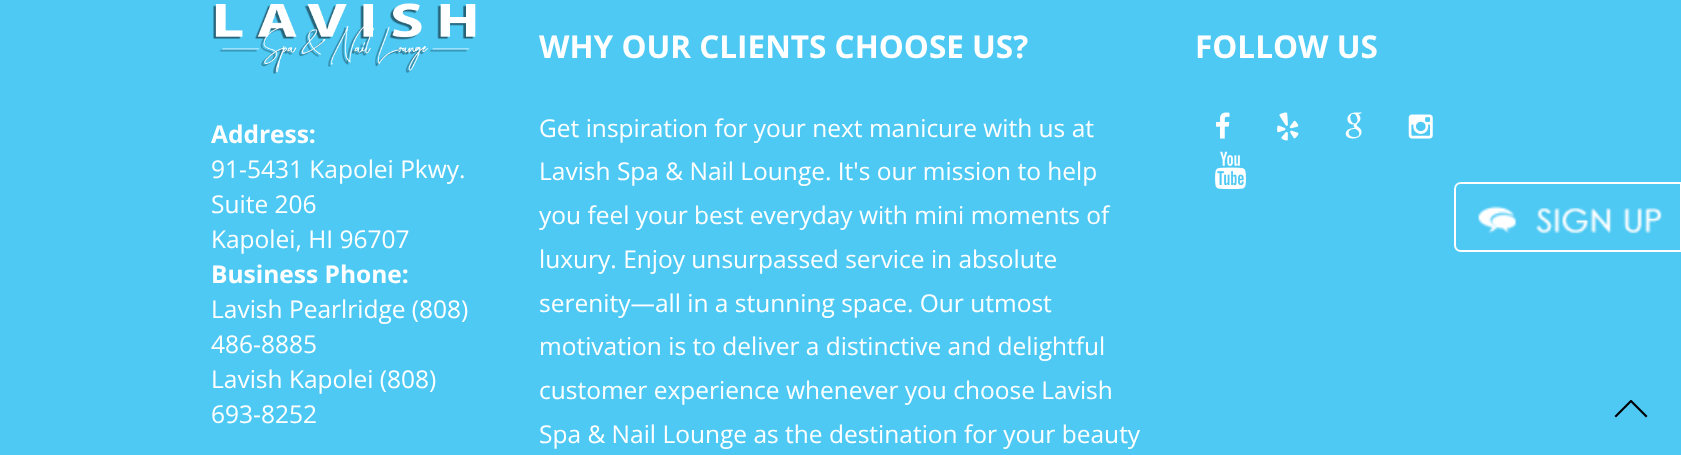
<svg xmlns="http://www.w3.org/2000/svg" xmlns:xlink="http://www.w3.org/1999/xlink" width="1681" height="455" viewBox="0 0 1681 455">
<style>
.cls-1{font:bold 31.5px Open Sans;fill:#ffffff}
.cls-2{font:24.5px Open Sans;fill:#ffffff}
.cls-3{font:bold 24.5px Open Sans;fill:#ffffff}
</style>
<rect width="100%" height="100%" fill="#4dc9f4"/>
<image xlink:href="image0.png" x="1216" y="112" width="14" height="27"/>
<image xlink:href="image1.png" x="1277" y="112" width="22" height="29"/>
<image xlink:href="image2.png" x="1345" y="112" width="17" height="27"/>
<image xlink:href="image3.png" x="1408" y="114" width="25" height="25"/>
<image xlink:href="image4.png" x="1215" y="151" width="31" height="39"/>
<image xlink:href="image5.png" x="213" y="3" width="263" height="71"/>
<path fill="#000000" d="M1647.5 416L1646 417.5L1631 402.5L1616 417.5L1614.5 416L1630.5 400H1631.5Z"/>
<image xlink:href="image6.png" x="1478" y="206" width="185" height="28"/>
<path fill="none" stroke="#ffffff" stroke-width="2" d="M1461 183H1681V251H1461C1457.5 251 1455 248.5 1455 245V189C1455 185.5 1457.5 183 1461 183Z"/>
<text class="cls-1" x="539" y="58">WHY OUR CLIENTS CHOOSE US?</text>
<text class="cls-2"><tspan x="539" y="137">Get inspiration for your next manicure with us at</tspan><tspan x="539" y="180">Lavish Spa &amp; Nail Lounge. It's our mission to help</tspan><tspan x="539" y="224">you feel your best everyday with mini moments of</tspan><tspan x="539" y="268">luxury. Enjoy unsurpassed service in absolute</tspan><tspan x="539" y="312">serenity—all in a stunning space. Our utmost</tspan><tspan x="539" y="355">motivation is to deliver a distinctive and delightful</tspan><tspan x="539" y="399">customer experience whenever you choose Lavish</tspan><tspan x="539" y="443">Spa &amp; Nail Lounge as the destination for your beauty</tspan></text>
<text class="cls-1" x="1195" y="58">FOLLOW US</text>
<text class="cls-3" x="211" y="143">Address:</text>
<text class="cls-2"><tspan x="211" y="178">91-5431 Kapolei Pkwy.</tspan><tspan x="211" y="213">Suite 206</tspan><tspan x="211" y="248">Kapolei, HI 96707</tspan></text>
<text class="cls-3" x="211" y="283">Business Phone:</text>
<text class="cls-2"><tspan x="211" y="318">Lavish Pearlridge (808)</tspan><tspan x="211" y="353">486-8885</tspan><tspan x="211" y="388">Lavish Kapolei (808)</tspan><tspan x="211" y="423">693-8252</tspan></text>
</svg>
